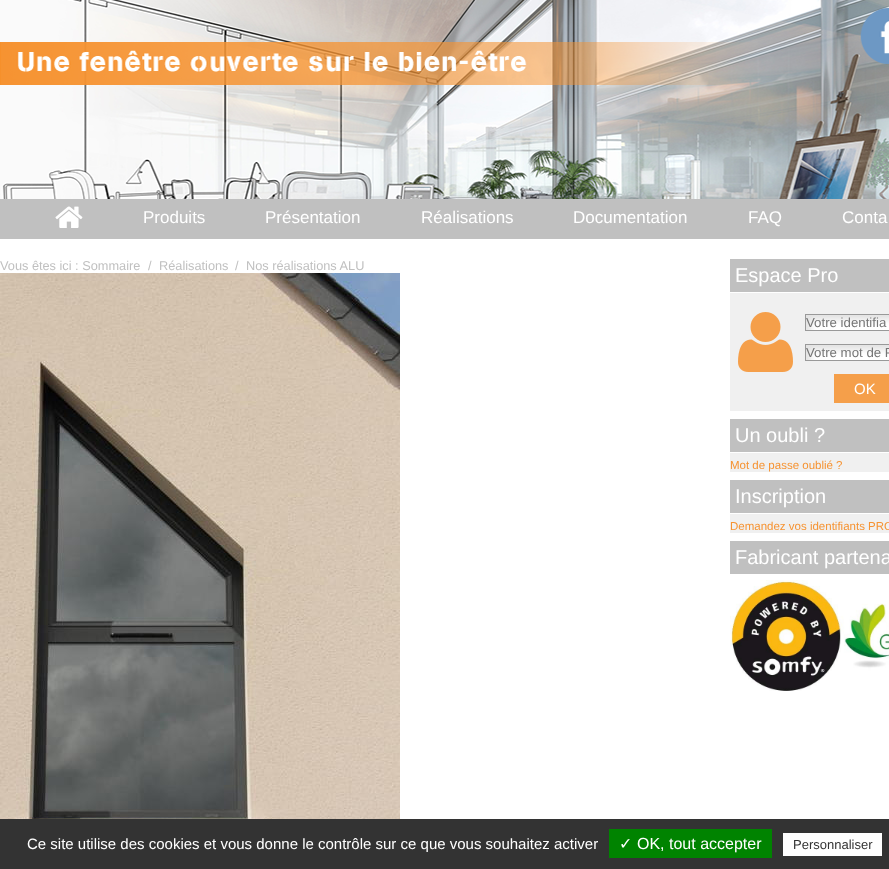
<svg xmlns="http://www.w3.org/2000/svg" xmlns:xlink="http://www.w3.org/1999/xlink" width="889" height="869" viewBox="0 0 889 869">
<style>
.cls-1{font:17px Liberation Sans;fill:#ffffff}
.cls-2{font:12.75px Liberation Sans;fill:#c0c0c0}
.cls-3{font:20px Liberation Sans;fill:#ffffff}
.cls-4{font:13.25px Liberation Sans;fill:#757575}
.cls-5{font:15px Liberation Sans;fill:#ffffff}
.cls-6{font:11.5px Liberation Sans;fill:#f69332}
.cls-7{font:16px DejaVu Sans;fill:#ffffff}
.cls-8{font:16px Liberation Sans;fill:#ffffff}
.cls-9{font:13px Liberation Sans;fill:#333333}
</style>
<rect width="100%" height="100%" fill="#ffffff"/>
<image xlink:href="image0.png" x="0" y="0" width="889" height="199"/>
<rect fill="#c0c0c0" x="0" y="199" width="889" height="40"/>
<image xlink:href="image1.png" x="55" y="206" width="28" height="22"/>
<image xlink:href="image2.png" x="0" y="273" width="400" height="546"/>
<rect fill="#f0f0f0" x="730" y="293" width="159" height="118"/>
<rect fill="#c0c0c0" x="730" y="259" width="159" height="33"/>
<image xlink:href="image3.png" x="738" y="312" width="55" height="60"/>
<image xlink:href="image4.png" x="806" y="315" width="83" height="15"/>
<rect fill="none" stroke="#999999" x="805.5" y="314.5" width="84" height="16"/>
<image xlink:href="image4.png" x="806" y="345" width="83" height="15"/>
<rect fill="none" stroke="#999999" x="805.5" y="344.5" width="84" height="16"/>
<rect fill="#f59f4a" x="834" y="374" width="55" height="29"/>
<rect fill="#f0f0f0" x="730" y="453" width="159" height="19"/>
<rect fill="#c0c0c0" x="730" y="419" width="159" height="33"/>
<rect fill="#f0f0f0" x="730" y="514" width="159" height="19"/>
<rect fill="#c0c0c0" x="730" y="480" width="159" height="33"/>
<rect fill="#c0c0c0" x="730" y="541" width="159" height="33"/>
<image xlink:href="image5.png" x="730" y="580" width="159" height="111"/>
<rect fill="#333333" x="0" y="819" width="889" height="50"/>
<rect fill="#008300" x="609" y="829" width="163" height="29"/>
<rect fill="#ffffff" x="783" y="833" width="99" height="23"/>
<text class="cls-1" x="143" y="223">Produits</text>
<text class="cls-1" x="265" y="223">Présentation</text>
<text class="cls-1" x="421" y="223">Réalisations</text>
<text class="cls-1" x="573" y="223">Documentation</text>
<text class="cls-1" x="748" y="223">FAQ</text>
<text class="cls-1" x="842" y="223">Conta</text>
<text class="cls-2" x="0" y="270">Vous êtes ici : Sommaire</text>
<text class="cls-2" x="148" y="270">/</text>
<text class="cls-2" x="159" y="270">Réalisations</text>
<text class="cls-2" x="235" y="270">/</text>
<text class="cls-2" x="246" y="270">Nos réalisations ALU</text>
<text class="cls-3" x="735" y="282">Espace Pro</text>
<text class="cls-4" x="806" y="327">Votre identifia</text>
<text class="cls-4" x="806" y="357">Votre mot de P</text>
<text class="cls-5" x="854" y="394">OK</text>
<text class="cls-3" x="735" y="442">Un oubli ?</text>
<text class="cls-6" x="730" y="469">Mot de passe oublié ?</text>
<text class="cls-3" x="735" y="503">Inscription</text>
<text class="cls-6" x="730" y="530">Demandez vos identifiants PRO</text>
<text class="cls-3" x="735" y="564">Fabricant partena</text>
<text class="cls-5" x="27" y="849">Ce site utilise des cookies et vous donne le contrôle sur ce que vous souhaitez activer</text>
<text class="cls-7" x="619" y="849">✓</text>
<text class="cls-8" x="637" y="849">OK, tout accepter</text>
<text class="cls-9" x="793" y="849">Personnaliser</text>
</svg>
